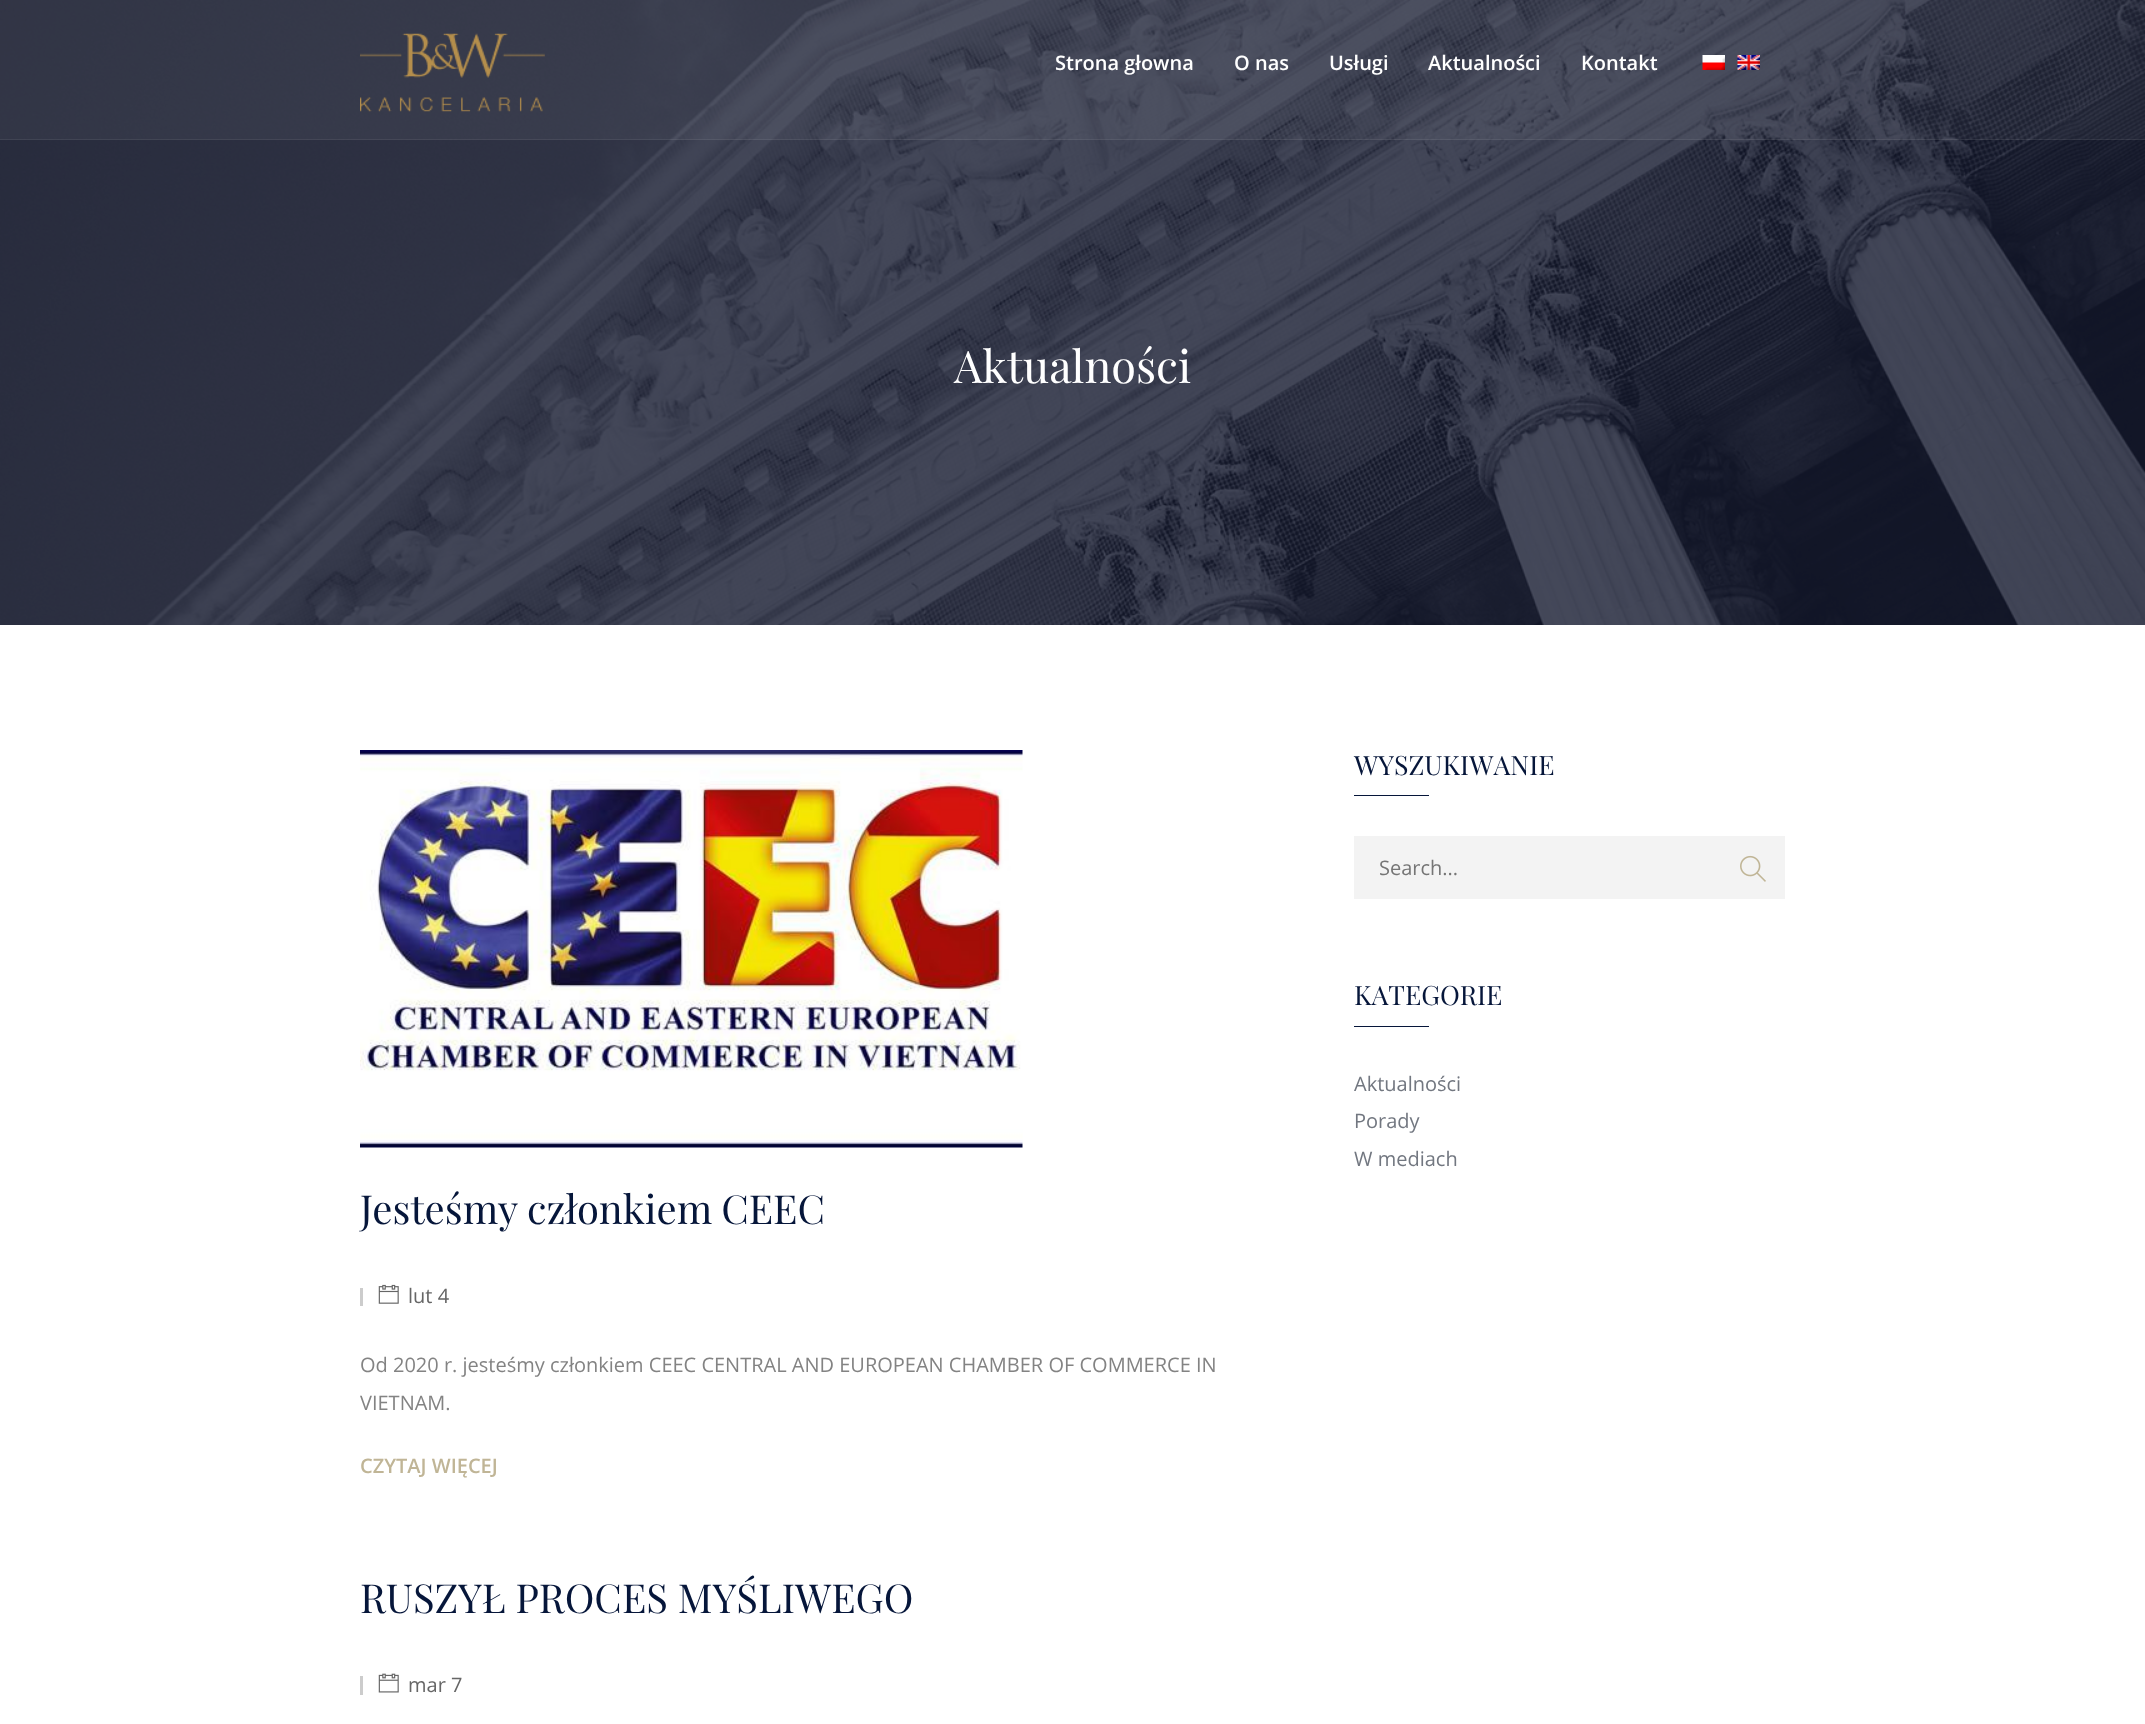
<svg xmlns="http://www.w3.org/2000/svg" xmlns:xlink="http://www.w3.org/1999/xlink" width="2145" height="1724" viewBox="0 0 2145 1724">
<style>
.cls-1{font:600 20px Open Sans;fill:#ffffff}
.cls-2{font:45px Playfair Display;fill:#ffffff}
.cls-3{font:26.75px Playfair Display;fill:#06163a}
.cls-4{font:20px Open Sans;fill:#757575}
.cls-5{font:20px Open Sans;fill:#727780}
.cls-6{font:40px Playfair Display;fill:#06163a}
.cls-7{font:20px Open Sans;fill:#666666}
.cls-8{font:20px Open Sans;fill:#838383}
.cls-9{font:600 20px Open Sans;fill:#c0b596}
</style>
<rect width="100%" height="100%" fill="#ffffff"/>
<image xlink:href="image3.png" x="0" y="0" width="2145" height="625"/>
<rect fill="#ffffff" fill-opacity="0.05" x="0" y="0" width="2145" height="140"/>
<rect fill="#ffffff" fill-opacity="0.07" x="0" y="139" width="2145" height="1"/>
<image xlink:href="image0.png" x="360" y="33" width="185" height="79"/>
<image xlink:href="image1.png" x="1702" y="55" width="23" height="15"/>
<image xlink:href="image2.png" x="1737" y="55" width="23" height="15"/>
<rect fill="#06163a" x="1354" y="795" width="75" height="1"/>
<rect fill="#f3f3f3" x="1354" y="836" width="431" height="63"/>
<image xlink:href="image4.png" x="1740" y="855" width="26" height="27"/>
<rect fill="#06163a" x="1354" y="1026" width="75" height="1"/>
<image xlink:href="image5.png" x="360" y="750" width="663" height="398"/>
<rect fill="#cccccc" x="360" y="1288" width="3" height="18"/>
<image xlink:href="image6.png" x="378" y="1284" width="21" height="20"/>
<rect fill="#cccccc" x="360" y="1676" width="3" height="19"/>
<image xlink:href="image7.png" x="378" y="1673" width="21" height="20"/>
<text class="cls-1" x="1055" y="70">Strona głowna</text>
<text class="cls-1" x="1234" y="70">O nas</text>
<text class="cls-1" x="1329" y="70">Usługi</text>
<text class="cls-1" x="1428" y="70">Aktualności</text>
<text class="cls-1" x="1581" y="70">Kontakt</text>
<text class="cls-2" x="954" y="383">Aktualności</text>
<text class="cls-3" x="1354" y="775">WYSZUKIWANIE</text>
<text class="cls-4" x="1379" y="875">Search...</text>
<text class="cls-3" x="1354" y="1005">KATEGORIE</text>
<text class="cls-5"><tspan x="1354" y="1091">Aktualności</tspan><tspan x="1354" y="1128">Porady</tspan><tspan x="1354" y="1166">W mediach</tspan></text>
<text class="cls-6" x="360" y="1224" word-spacing="-1">Jesteśmy członkiem CEEC</text>
<text class="cls-7" x="408" y="1303">lut 4</text>
<text class="cls-8"><tspan x="360" y="1372">Od 2020 r. jesteśmy członkiem CEEC CENTRAL AND EUROPEAN CHAMBER OF COMMERCE IN</tspan><tspan x="360" y="1410">VIETNAM.</tspan></text>
<text class="cls-9" x="360" y="1473">CZYTAJ WIĘCEJ</text>
<text class="cls-6" x="360" y="1613">RUSZYŁ PROCES MYŚLIWEGO</text>
<text class="cls-7" x="408" y="1692">mar 7</text>
</svg>
